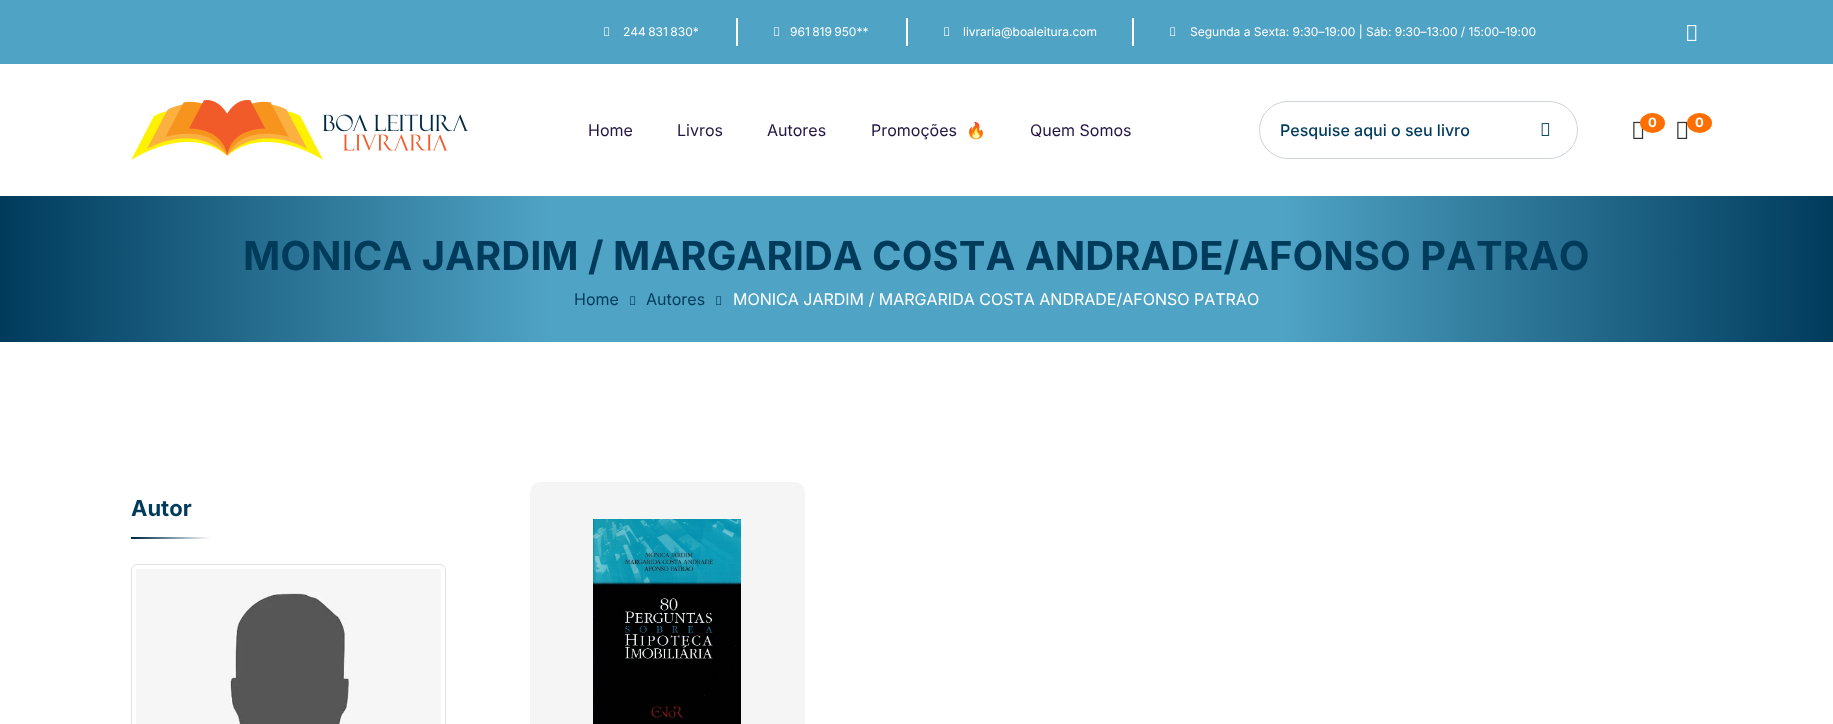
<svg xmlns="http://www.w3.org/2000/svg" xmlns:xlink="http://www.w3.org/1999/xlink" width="1833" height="724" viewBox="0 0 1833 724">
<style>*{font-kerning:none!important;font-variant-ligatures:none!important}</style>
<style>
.cls-1{font:12px Inter;fill:#ffffff}
.cls-2{font:16px Inter;fill:#241442}
.cls-3{font:16px Noto Color Emoji;fill:#241442}
.cls-4{font:500 16px Inter;fill:#003b5c}
.cls-5{font:bold 13px Inter;fill:#ffffff}
.cls-6{font:bold 40px Inter;fill:#003b5c}
.cls-7{font:16px Inter;fill:#003b5c}
.cls-8{font:16px Inter;fill:#ffffff}
.cls-9{font:bold 22px Inter;fill:#003b5c}
</style>
<defs>
<linearGradient id="g1" gradientUnits="userSpaceOnUse" x1="0" y1="269" x2="1833" y2="269"><stop offset="0" stop-color="#003b5c"/><stop offset="0.3" stop-color="#4fa3c5"/><stop offset="0.7" stop-color="#4fa3c5"/><stop offset="1" stop-color="#003b5c"/></linearGradient>
<linearGradient id="g2" gradientUnits="userSpaceOnUse" x1="131" y1="538" x2="214" y2="538"><stop offset="0.05" stop-color="#012e4a"/><stop offset="0.96" stop-color="#ffffff"/></linearGradient>
</defs>
<rect width="100%" height="100%" fill="#ffffff"/>
<rect fill="#4fa3c5" x="0" y="0" width="1833" height="64"/>
<rect fill="#ffffff" x="736" y="18" width="2" height="28"/>
<image xlink:href="image0.png" x="604" y="27" width="6" height="9"/>
<rect fill="#ffffff" x="906" y="18" width="2" height="28"/>
<image xlink:href="image0.png" x="774" y="27" width="6" height="9"/>
<rect fill="#ffffff" x="1132" y="18" width="2" height="28"/>
<image xlink:href="image0.png" x="944" y="27" width="6" height="9"/>
<image xlink:href="image0.png" x="1170" y="27" width="6" height="9"/>
<image xlink:href="image1.png" x="1687" y="25" width="10" height="16"/>
<image xlink:href="image2.png" x="131" y="100" width="337" height="60"/>
<rect fill="none" stroke="#ced4d8" x="1259.5" y="101.5" width="318" height="57" rx="28.5"/>
<image xlink:href="image3.png" x="1541" y="123" width="9" height="13"/>
<image xlink:href="image4.png" x="1633" y="121" width="11" height="18"/>
<ellipse fill="#ff6f00" cx="1652.5" cy="123" rx="12.5" ry="10"/>
<image xlink:href="image4.png" x="1677" y="121" width="11" height="18"/>
<ellipse fill="#ff6f00" cx="1699.5" cy="123" rx="12.5" ry="10"/>
<rect fill="url(#g1)" x="0" y="196" width="1833" height="146"/>
<image xlink:href="image5.png" x="630" y="296" width="6" height="9"/>
<image xlink:href="image5.png" x="716" y="296" width="6" height="9"/>
<rect fill="url(#g2)" x="131" y="537" width="83" height="2"/>
<rect fill="none" stroke="#dee2e6" x="131.5" y="564.5" width="314" height="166" rx="5.5"/>
<image xlink:href="image6.png" x="136" y="569" width="305" height="155"/>
<rect fill="#f5f5f5" x="530" y="482" width="275" height="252" rx="10"/>
<image xlink:href="image7.png" x="593" y="519" width="148" height="205"/>
<text class="cls-1" x="623" y="36" word-spacing="-1">244 831 830*</text>
<text class="cls-1" x="790" y="36" word-spacing="-1">961 819 950**</text>
<text class="cls-1" x="963" y="36">livraria@boaleitura.com</text>
<text class="cls-1" x="1190" y="36">Segunda a Sexta: 9:30–19:00 | Sáb: 9:30–13:00 / 15:00–19:00</text>
<text class="cls-2" x="588" y="136">Home</text>
<text class="cls-2" x="677" y="136">Livros</text>
<text class="cls-2" x="767" y="136">Autores</text>
<text class="cls-2" x="871" y="136">Promoções</text>
<text class="cls-3" x="966" y="136">🔥</text>
<text class="cls-2" x="1030" y="136">Quem Somos</text>
<text class="cls-4" x="1280" y="136">Pesquise aqui o seu livro</text>
<text class="cls-5" x="1648" y="127">0</text>
<text class="cls-5" x="1695" y="127">0</text>
<text class="cls-6" x="243" y="270">MONICA JARDIM / MARGARIDA COSTA</text>
<text class="cls-6" x="1025" y="270">ANDRADE/AFONSO PATRAO</text>
<text class="cls-7" x="574" y="305">Home</text>
<text class="cls-7" x="646" y="305">Autores</text>
<text class="cls-8" x="733" y="305">MONICA JARDIM / MARGARIDA COSTA ANDRADE/AFONSO PATRAO</text>
<text class="cls-9" x="131" y="516">Autor</text>
</svg>
